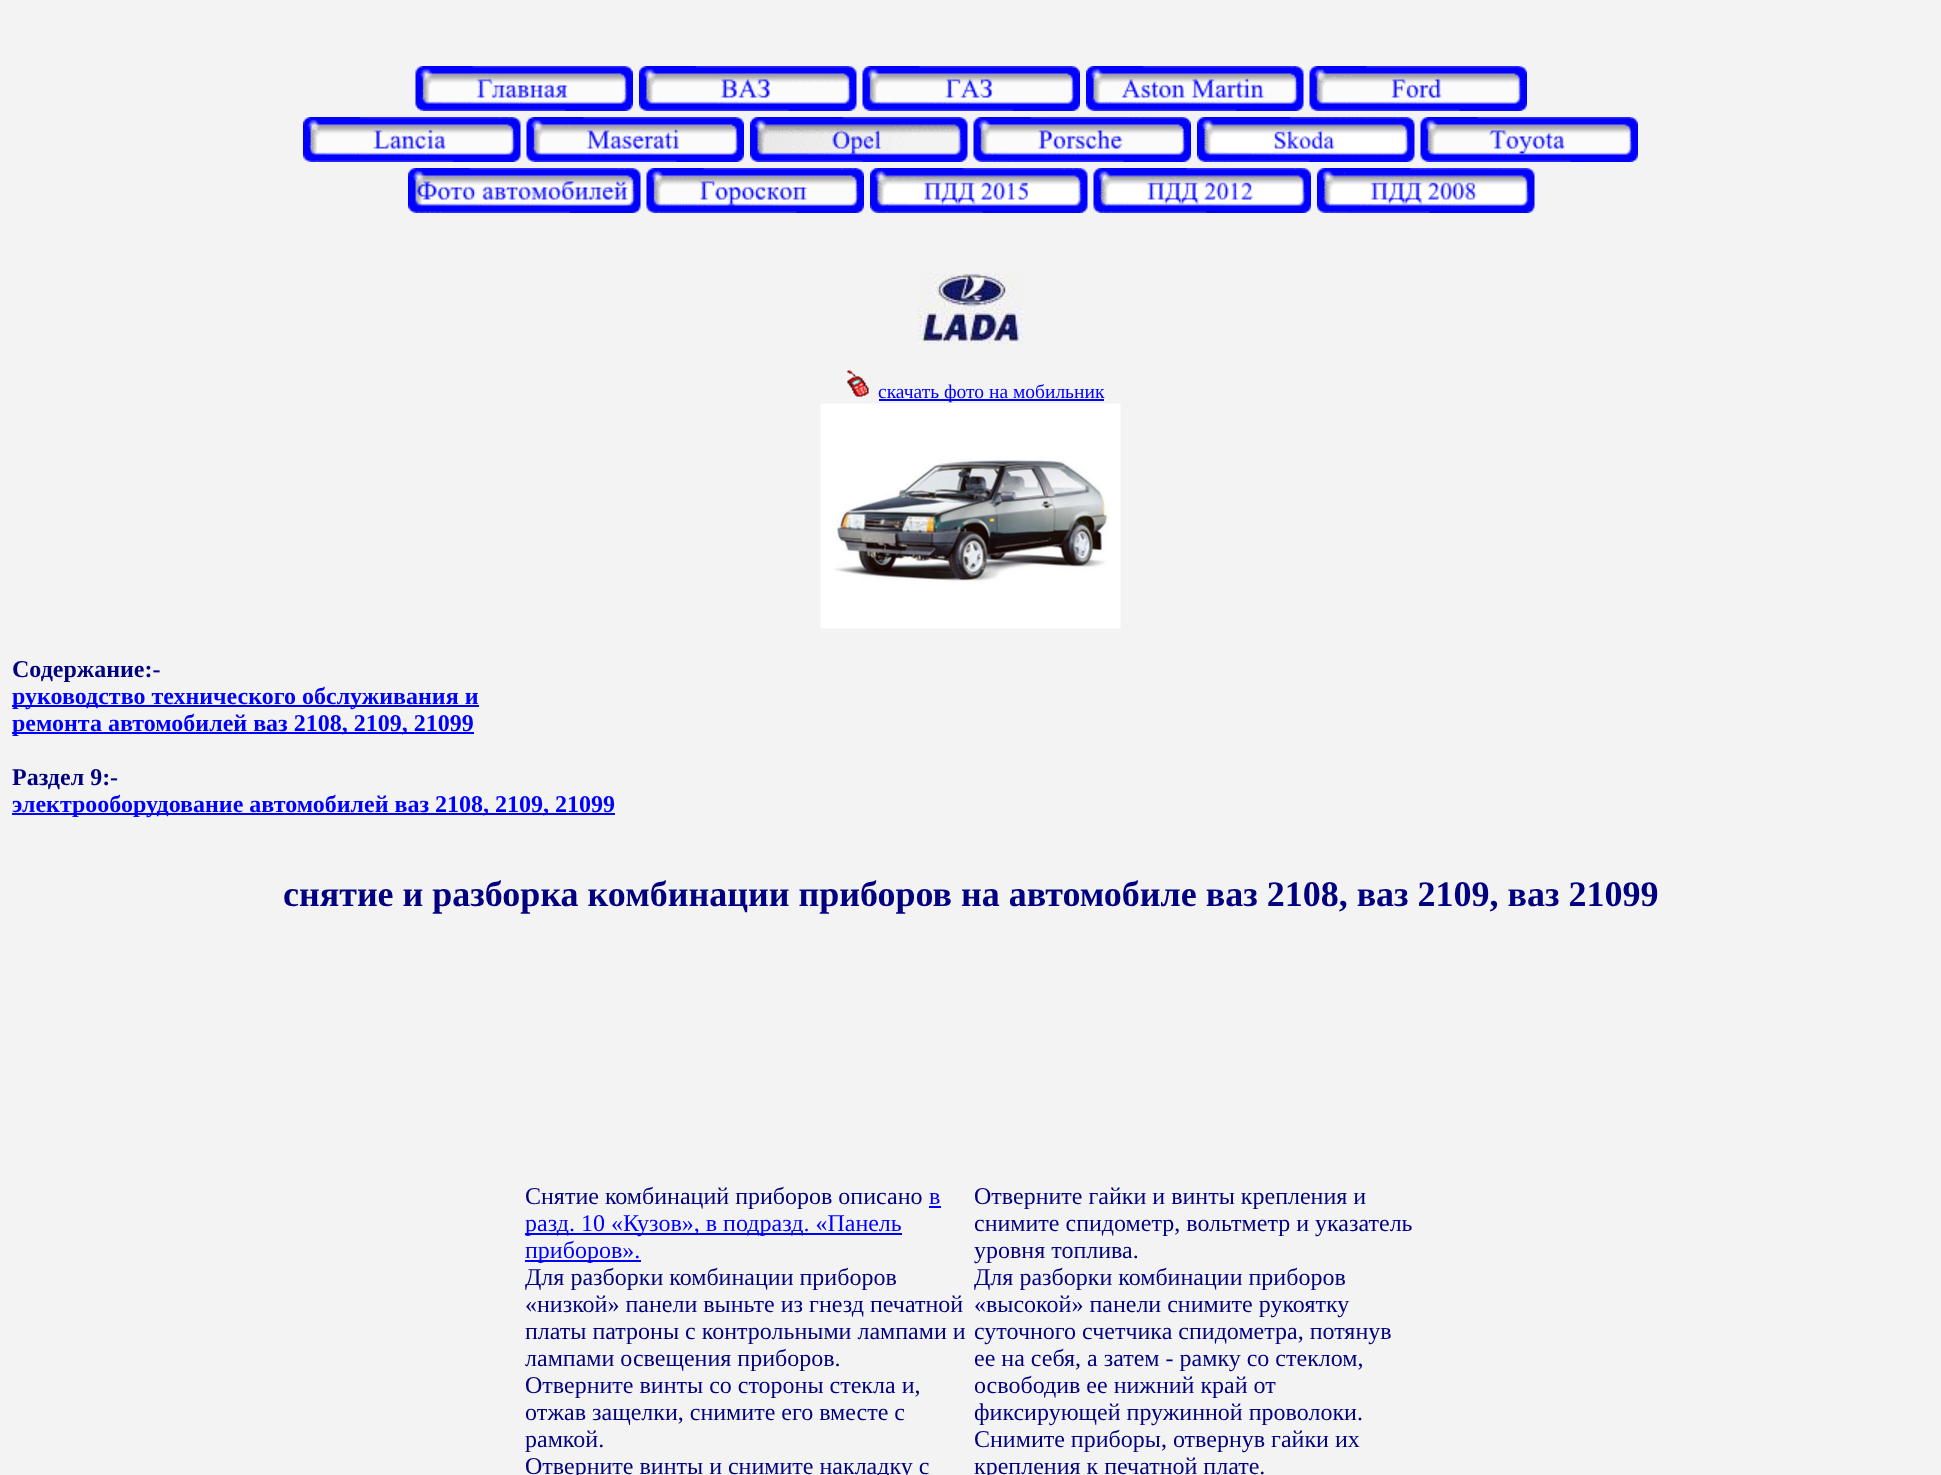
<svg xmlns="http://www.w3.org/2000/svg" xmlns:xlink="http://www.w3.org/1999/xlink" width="1941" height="1475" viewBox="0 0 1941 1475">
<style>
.cls-1{font:19.5px Liberation Serif;fill:#0000ff}
.cls-2{font:bold 24px Liberation Serif;fill:#000080}
.cls-3{font:bold 24px Liberation Serif;fill:#0000ff}
.cls-4{font:bold 36px Liberation Serif;fill:#000080}
.cls-5{font:24px Liberation Serif;fill:#000080}
.cls-6{font:24px Liberation Serif;fill:#0000ff}
</style>
<rect width="100%" height="100%" fill="#f3f3f3"/>
<image xlink:href="image0.png" x="415" y="66" width="218" height="45"/>
<image xlink:href="image1.png" x="639" y="66" width="218" height="45"/>
<image xlink:href="image2.png" x="862" y="66" width="218" height="45"/>
<image xlink:href="image3.png" x="1086" y="66" width="218" height="45"/>
<image xlink:href="image4.png" x="1309" y="66" width="218" height="45"/>
<image xlink:href="image5.png" x="303" y="117" width="218" height="45"/>
<image xlink:href="image6.png" x="526" y="117" width="218" height="45"/>
<image xlink:href="image7.png" x="750" y="117" width="218" height="45"/>
<image xlink:href="image8.png" x="973" y="117" width="218" height="45"/>
<image xlink:href="image9.png" x="1197" y="117" width="218" height="45"/>
<image xlink:href="image10.png" x="1420" y="117" width="218" height="45"/>
<image xlink:href="image11.png" x="408" y="168" width="233" height="45"/>
<image xlink:href="image12.png" x="646" y="168" width="218" height="45"/>
<image xlink:href="image13.png" x="870" y="168" width="218" height="45"/>
<image xlink:href="image14.png" x="1093" y="168" width="218" height="45"/>
<image xlink:href="image15.png" x="1317" y="168" width="218" height="45"/>
<image xlink:href="image16.png" x="918" y="273" width="105" height="71"/>
<image xlink:href="image17.png" x="847" y="370" width="22" height="27"/>
<rect fill="#0000ff" x="879" y="399" width="225" height="2"/>
<image xlink:href="image18.png" x="820" y="403" width="301" height="226"/>
<rect fill="#0000ff" x="12" y="705" width="467" height="2"/>
<rect fill="#0000ff" x="12" y="732" width="462" height="2"/>
<rect fill="#0000ff" x="12" y="813" width="603" height="2"/>
<rect fill="#0000ff" x="929" y="1206" width="12" height="2"/>
<rect fill="#0000ff" x="525" y="1233" width="377" height="2"/>
<rect fill="#0000ff" x="525" y="1260" width="116" height="2"/>
<text class="cls-1" x="878" y="398">скачать фото на мобильник</text>
<text class="cls-2" x="12" y="677">Содержание:-</text>
<text class="cls-3"><tspan x="12" y="704">руководство технического обслуживания и</tspan><tspan x="12" y="731">ремонта автомобилей ваз 2108, 2109, 21099</tspan></text>
<text class="cls-2" x="12" y="785">Раздел 9:-</text>
<text class="cls-3" x="12" y="812">электрооборудование автомобилей ваз 2108, 2109, 21099</text>
<text class="cls-4" x="283" y="906">снятие и разборка комбинации приборов на автомобиле ваз 2108, ваз 2109, ваз 21099</text>
<text class="cls-5" x="525" y="1204">Снятие комбинаций приборов описано</text>
<text class="cls-6" x="929" y="1204">в</text>
<text class="cls-6"><tspan x="525" y="1231">разд. 10 «Кузов», в подразд. «Панель</tspan><tspan x="525" y="1258">приборов».</tspan></text>
<text class="cls-5"><tspan x="525" y="1285">Для разборки комбинации приборов</tspan><tspan x="525" y="1312">«низкой» панели выньте из гнезд печатной</tspan><tspan x="525" y="1339">платы патроны с контрольными лампами и</tspan><tspan x="525" y="1366">лампами освещения приборов.</tspan><tspan x="525" y="1393">Отверните винты со стороны стекла и,</tspan><tspan x="525" y="1420">отжав защелки, снимите его вместе с</tspan><tspan x="525" y="1447">рамкой.</tspan><tspan x="525" y="1474">Отверните винты и снимите накладку с</tspan></text>
<text class="cls-5"><tspan x="974" y="1204">Отверните гайки и винты крепления и</tspan><tspan x="974" y="1231">снимите спидометр, вольтметр и указатель</tspan><tspan x="974" y="1258">уровня топлива.</tspan><tspan x="974" y="1285">Для разборки комбинации приборов</tspan><tspan x="974" y="1312">«высокой» панели снимите рукоятку</tspan><tspan x="974" y="1339">суточного счетчика спидометра, потянув</tspan><tspan x="974" y="1366">ее на себя, а затем - рамку со стеклом,</tspan><tspan x="974" y="1393">освободив ее нижний край от</tspan><tspan x="974" y="1420">фиксирующей пружинной проволоки.</tspan><tspan x="974" y="1447">Снимите приборы, отвернув гайки их</tspan><tspan x="974" y="1474">крепления к печатной плате.</tspan></text>
</svg>
